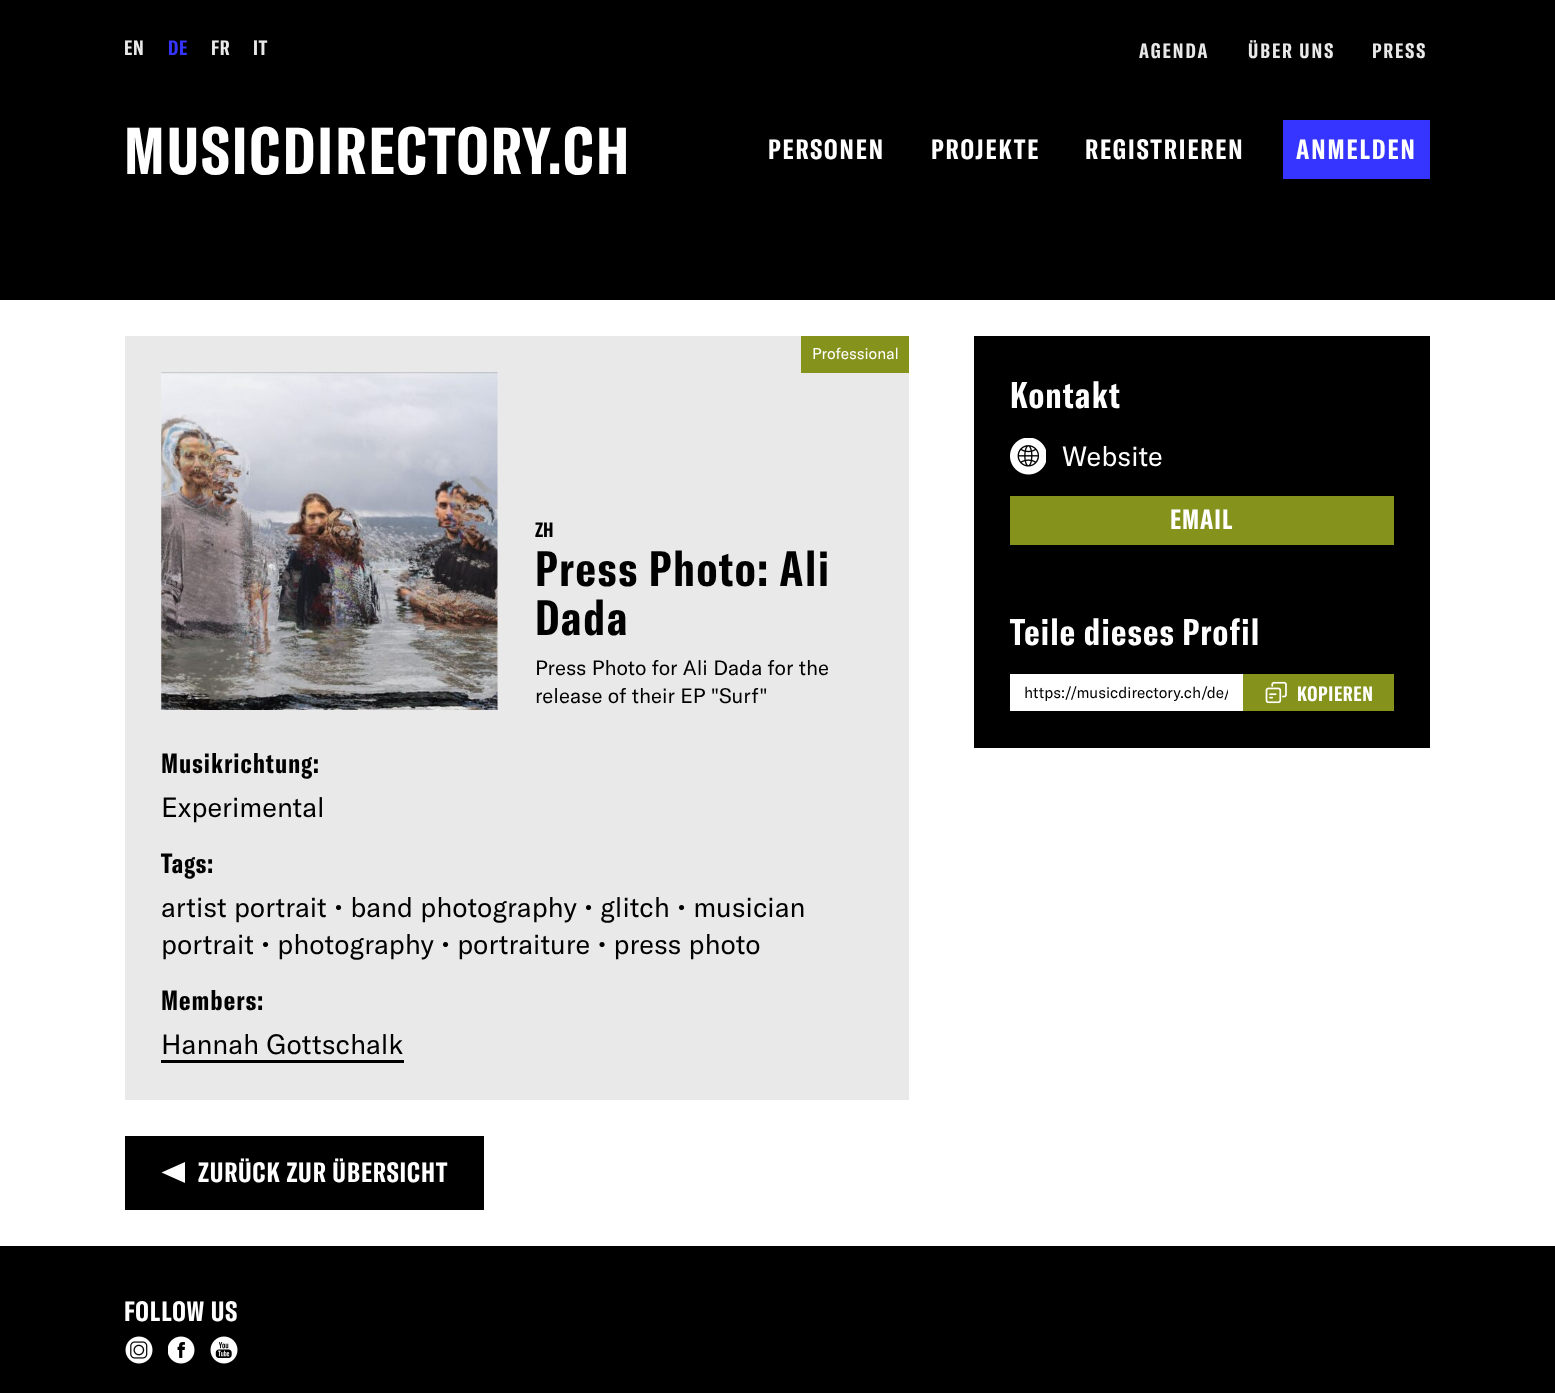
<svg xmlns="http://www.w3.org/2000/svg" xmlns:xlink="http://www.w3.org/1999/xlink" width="1555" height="1393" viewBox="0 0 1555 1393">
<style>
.cls-1{font:bold 20.6px GT America;letter-spacing:0.75px;fill:#e9e9e9}
.cls-2{font:bold 20.6px GT America;letter-spacing:0.75px;fill:#3535ff}
.cls-3{font:bold 20.6px GT America;letter-spacing:2px;fill:#e9e9e9}
.cls-4{font:bold 27.5px GT America;letter-spacing:2px;fill:#ffffff}
.cls-5{font:bold 65.25px GT America;letter-spacing:2.25px;fill:#ffffff}
.cls-6{font:15.5px GT America;fill:#ffffff}
.cls-7{font:bold 20.6px GT America;fill:#000000}
.cls-8{font:bold 49px GT America;letter-spacing:1.75px;fill:#000000}
.cls-9{font:20.6px GT America;fill:#000000}
.cls-10{font:bold 27.5px GT America;letter-spacing:1px;fill:#000000}
.cls-11{font:27.5px GT America;fill:#000000}
.cls-12{font:bold 36.75px GT America;letter-spacing:1.25px;fill:#ffffff}
.cls-13{font:27.5px GT America;fill:#ffffff}
.cls-14{font:bold 27.5px GT America;letter-spacing:1px;fill:#ffffff}
.cls-15{font:15.5px GT America;fill:#000000}
.cls-16{font:bold 20.6px GT America;letter-spacing:0.75px;fill:#ffffff}
</style>
<defs>
<clipPath id="clip1"><rect x="1024" y="684" width="204" height="17"/></clipPath>
</defs>
<rect width="100%" height="100%" fill="#ffffff"/>
<rect fill="#000000" x="0" y="0" width="1555" height="300"/>
<rect fill="#3535ff" x="1283" y="120" width="147" height="59"/>
<rect fill="#e9e9e9" x="125" y="336" width="784" height="764"/>
<rect fill="#85931c" x="801" y="336" width="108" height="37"/>
<image xlink:href="image0.png" x="161" y="372" width="337" height="338"/>
<rect fill="#000000" x="161" y="1060" width="243" height="3"/>
<rect fill="#000000" x="974" y="336" width="456" height="412"/>
<image xlink:href="image1.png" x="1010" y="438" width="36" height="37"/>
<rect fill="#85931c" x="1010" y="496" width="384" height="49"/>
<rect fill="#ffffff" x="1010" y="674" width="233" height="37"/>
<rect fill="#85931c" x="1243" y="674" width="151" height="37"/>
<image xlink:href="image2.png" x="1265" y="681" width="22" height="23"/>
<rect fill="#000000" x="125" y="1136" width="359" height="74"/>
<path fill="#ffffff" fill-rule="evenodd" d="M185 1162L161.5 1172.5L185 1183Z"/>
<rect fill="#000000" x="0" y="1246" width="1555" height="147"/>
<image xlink:href="image3.png" x="125" y="1336" width="28" height="28"/>
<image xlink:href="image4.png" x="168" y="1336" width="27" height="28"/>
<image xlink:href="image5.png" x="210" y="1336" width="28" height="28"/>
<text class="cls-1" x="124" y="55">EN</text>
<text class="cls-2" x="168" y="55">DE</text>
<text class="cls-1" x="211" y="55">FR</text>
<text class="cls-1" x="253" y="55">IT</text>
<text class="cls-3" x="1139" y="58">AGENDA</text>
<text class="cls-3" x="1248" y="58">ÜBER UNS</text>
<text class="cls-3" x="1372" y="58">PRESS</text>
<text class="cls-4" x="768" y="159">PERSONEN</text>
<text class="cls-4" x="931" y="159">PROJEKTE</text>
<text class="cls-4" x="1085" y="159">REGISTRIEREN</text>
<text class="cls-4" x="1296" y="159">ANMELDEN</text>
<text class="cls-5" x="124" y="174">MUSICDIRECTORY.CH</text>
<text class="cls-6" x="812" y="359">Professional</text>
<text class="cls-7" x="535" y="537">ZH</text>
<text class="cls-8"><tspan x="535" y="586">Press Photo: Ali</tspan><tspan x="535" y="635">Dada</tspan></text>
<text class="cls-9"><tspan x="535" y="675">Press Photo for Ali Dada for the</tspan><tspan x="535" y="703">release of their EP "Surf"</tspan></text>
<text class="cls-10" x="161" y="773">Musikrichtung:</text>
<text class="cls-11" x="161" y="817">Experimental</text>
<text class="cls-10" x="161" y="873">Tags:</text>
<text class="cls-11"><tspan x="161" y="917">artist portrait • band photography • glitch • musician</tspan><tspan x="161" y="954">portrait • photography • portraiture • press photo</tspan></text>
<text class="cls-10" x="161" y="1010">Members:</text>
<text class="cls-11" x="161" y="1054">Hannah Gottschalk</text>
<text class="cls-12" x="1010" y="408">Kontakt</text>
<text class="cls-13" x="1062" y="466">Website</text>
<text class="cls-14" x="1170" y="529">EMAIL</text>
<text class="cls-12" x="1010" y="645">Teile dieses Profil</text>
<g clip-path="url(#clip1)">
<text class="cls-15" x="1024" y="698">https://musicdirectory.ch/de/</text>
</g>
<text class="cls-16" x="1297" y="701">KOPIEREN</text>
<text class="cls-14" x="198" y="1182">ZURÜCK ZUR ÜBERSICHT</text>
<text class="cls-14" x="124" y="1321">FOLLOW US</text>
</svg>
